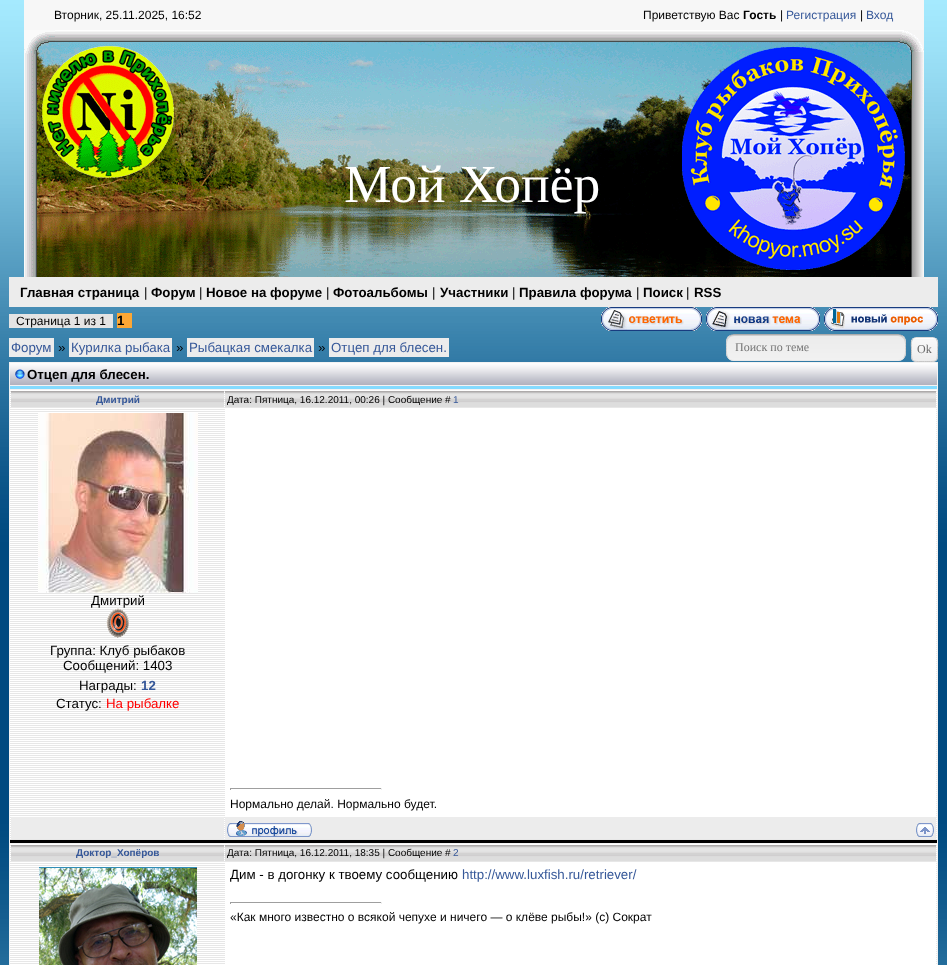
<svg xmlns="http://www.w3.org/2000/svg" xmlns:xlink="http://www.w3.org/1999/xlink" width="947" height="965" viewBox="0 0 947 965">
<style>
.cls-1{font:12px Liberation Sans;fill:#000000}
.cls-2{font:bold 12px Liberation Sans;fill:#000000}
.cls-3{font:12px Liberation Sans;fill:#365899}
.cls-4{font:53.5px Liberation Serif;fill:#ffffff}
.cls-5{font:bold 13.3px Liberation Sans;fill:#000000}
.cls-6{font:13.3px Liberation Sans;fill:#000000}
.cls-7{font:13.3px Liberation Sans;fill:#365899}
.cls-8{font:12px Liberation Serif;fill:#757575}
.cls-9{font:12px Liberation Serif;fill:#686868}
.cls-10{font:bold 10px Liberation Sans;fill:#365899}
.cls-11{font:10px Liberation Sans;fill:#000000}
.cls-12{font:10px Liberation Sans;fill:#365899}
.cls-13{font:bold 13.3px Liberation Sans;fill:#365899}
.cls-14{font:13.3px Liberation Sans;fill:#ff0000}
</style>
<rect width="100%" height="100%" fill="#ffffff"/>
<image xlink:href="image0.png" x="0" y="0" width="947" height="965"/>
<rect fill="#f7f7f7" x="24" y="0" width="900" height="30"/>
<image xlink:href="image1.png" x="24" y="30" width="900" height="247"/>
<rect fill="#ececec" x="9" y="277" width="929" height="30"/>
<rect fill="#e4e4e4" x="9" y="314" width="104" height="14"/>
<rect fill="#fca735" x="117" y="313" width="15" height="15"/>
<image xlink:href="image2.png" x="601" y="307" width="101" height="24"/>
<image xlink:href="image3.png" x="706" y="307" width="114" height="24"/>
<image xlink:href="image4.png" x="824" y="307" width="114" height="24"/>
<rect fill="#ececec" x="9" y="338" width="45" height="19"/>
<rect fill="#ececec" x="69" y="338" width="103" height="19"/>
<rect fill="#ececec" x="187" y="338" width="127" height="19"/>
<rect fill="#ececec" x="329" y="338" width="120" height="19"/>
<image xlink:href="image5.png" x="726" y="335" width="180" height="26"/>
<path fill="#cdcdcd" d="M734 336H898C902 336 905 339 905 343V342C905 338 902 335 898 335H734C730 335 727 338 727 342V343C727 339 730 336 734 336Z"/>
<path fill="none" stroke="#acacac" d="M728.5 336.5C730 335.5 732 334.5 734 334.5H898C900 334.5 902 335.5 903.5 336.5"/>
<path fill="none" stroke="#d0d0d0" d="M903.5 336.5C906 339.5 905.5 344 905.5 347.5C905.5 351 906 355.5 903.5 358.5"/>
<path fill="none" stroke="#e9e9e9" d="M903.5 358.5C902 359.5 900 360.5 898 360.5H734C732 360.5 730 359.5 728.5 358.5"/>
<path fill="none" stroke="#d0d0d0" d="M728.5 358.5C726 355.5 726.5 351 726.5 347.5C726.5 344 726 339.5 728.5 336.5"/>
<image xlink:href="image6.png" x="911" y="338" width="27" height="24"/>
<path fill="none" stroke="#dddddd" d="M913 339C913.5 338 915 337.5 916 337.5H933C934 337.5 935.5 338 936 339"/>
<path fill="none" stroke="#c6c6c6" d="M936 339C938.5 341 937.5 346.5 937.5 349.5C937.5 362.5 938 361.5 924.5 361.5C911 361.5 911.5 362.5 911.5 349.5C911.5 346.5 910.5 341 913 339"/>
<rect fill="#f3f3f3" x="9" y="362" width="929" height="603"/>
<image xlink:href="image7.png" x="10" y="363" width="927" height="22"/>
<rect fill="#84dbff" x="10" y="386" width="927" height="3"/>
<image xlink:href="image8.png" x="10" y="390" width="927" height="450"/>
<rect fill="#000000" x="10" y="840" width="927" height="3"/>
<image xlink:href="image9.png" x="11" y="391" width="213" height="16"/>
<image xlink:href="image10.png" x="225" y="391" width="711" height="16"/>
<image xlink:href="image11.png" x="38" y="413" width="160" height="180"/>
<image xlink:href="image12.png" x="106" y="608" width="23" height="30"/>
<rect fill="#ffffff" x="225" y="409" width="711" height="407"/>
<rect fill="#9f9f9f" x="230" y="788" width="152" height="1"/>
<rect fill="#eeeeee" x="381" y="788" width="1" height="2"/>
<rect fill="#9f9f9f" x="230" y="788" width="1" height="2"/>
<rect fill="#ececec" x="11" y="817" width="213" height="22"/>
<rect fill="#ececec" x="225" y="817" width="711" height="22"/>
<image xlink:href="image13.png" x="227" y="821" width="85" height="16"/>
<image xlink:href="image14.png" x="916" y="823" width="18" height="14"/>
<image xlink:href="image15.png" x="10" y="844" width="927" height="121"/>
<image xlink:href="image9.png" x="11" y="845" width="213" height="16"/>
<image xlink:href="image10.png" x="225" y="845" width="711" height="16"/>
<image xlink:href="image16.png" x="39" y="867" width="158" height="98"/>
<rect fill="#ffffff" x="225" y="863" width="711" height="101"/>
<rect fill="#9f9f9f" x="230" y="902" width="152" height="1"/>
<rect fill="#eeeeee" x="381" y="902" width="1" height="2"/>
<rect fill="#9f9f9f" x="230" y="902" width="1" height="2"/>
<text class="cls-1" x="54" y="19">Вторник, 25.11.2025, 16:52</text>
<text class="cls-1" x="643" y="19">Приветствую Вас</text>
<text class="cls-2" x="743" y="19">Гость</text>
<text class="cls-1" x="780" y="19">|</text>
<text class="cls-3" x="786" y="19">Регистрация</text>
<text class="cls-1" x="860" y="19">|</text>
<text class="cls-3" x="866" y="19">Вход</text>
<text class="cls-4" x="344" y="202">Мой Хопёр</text>
<text class="cls-5" x="20" y="297">Главная страница</text>
<text class="cls-6" x="144" y="297">|</text>
<text class="cls-5" x="151" y="297">Форум</text>
<text class="cls-6" x="199" y="297">|</text>
<text class="cls-5" x="206" y="297">Новое на форуме</text>
<text class="cls-6" x="326" y="297">|</text>
<text class="cls-5" x="333" y="297">Фотоальбомы</text>
<text class="cls-6" x="432" y="297">|</text>
<text class="cls-5" x="440" y="297">Участники</text>
<text class="cls-6" x="512" y="297">|</text>
<text class="cls-5" x="519" y="297">Правила форума</text>
<text class="cls-6" x="636" y="297">|</text>
<text class="cls-5" x="643" y="297">Поиск</text>
<text class="cls-6" x="686" y="297">|</text>
<text class="cls-5" x="694" y="297">RSS</text>
<text class="cls-1" x="16" y="325">Страница 1 из 1</text>
<text class="cls-5" x="117" y="325">1</text>
<text class="cls-7" x="11" y="352">Форум</text>
<text class="cls-6" x="58" y="352">»</text>
<text class="cls-7" x="71" y="352">Курилка рыбака</text>
<text class="cls-6" x="176" y="352">»</text>
<text class="cls-7" x="189" y="352">Рыбацкая смекалка</text>
<text class="cls-6" x="318" y="352">»</text>
<text class="cls-7" x="331" y="352">Отцеп для блесен.</text>
<text class="cls-8" x="735" y="351">Поиск по теме</text>
<text class="cls-9" x="917" y="353">Ok</text>
<text class="cls-5" x="27" y="379">Отцеп для блесен.</text>
<text class="cls-10" x="96" y="403">Дмитрий</text>
<text class="cls-11" x="227" y="403">Дата: Пятница, 16.12.2011, 00:26 | Сообщение #</text>
<text class="cls-12" x="453" y="403">1</text>
<text class="cls-6" x="91" y="605">Дмитрий</text>
<text class="cls-6" x="50" y="655">Группа: Клуб рыбаков</text>
<text class="cls-6" x="63" y="670">Сообщений: 1403</text>
<text class="cls-6" x="79" y="690">Награды:</text>
<text class="cls-13" x="141" y="690">12</text>
<text class="cls-6" x="56" y="708">Статус:</text>
<text class="cls-14" x="106" y="708">На рыбалке</text>
<text class="cls-1" x="230" y="808">Нормально делай. Нормально будет.</text>
<text class="cls-10" x="76" y="856">Доктор_Хопёров</text>
<text class="cls-11" x="227" y="856">Дата: Пятница, 16.12.2011, 18:35 | Сообщение #</text>
<text class="cls-12" x="453" y="856">2</text>
<text class="cls-6" x="230" y="879">Дим - в догонку к твоему сообщению</text>
<text class="cls-7" x="462" y="879">http://www.luxfish.ru/retriever/</text>
<text class="cls-1" x="230" y="921">«Как много известно о всякой чепухе и ничего — о клёве рыбы!» (с) Сократ</text>
</svg>
